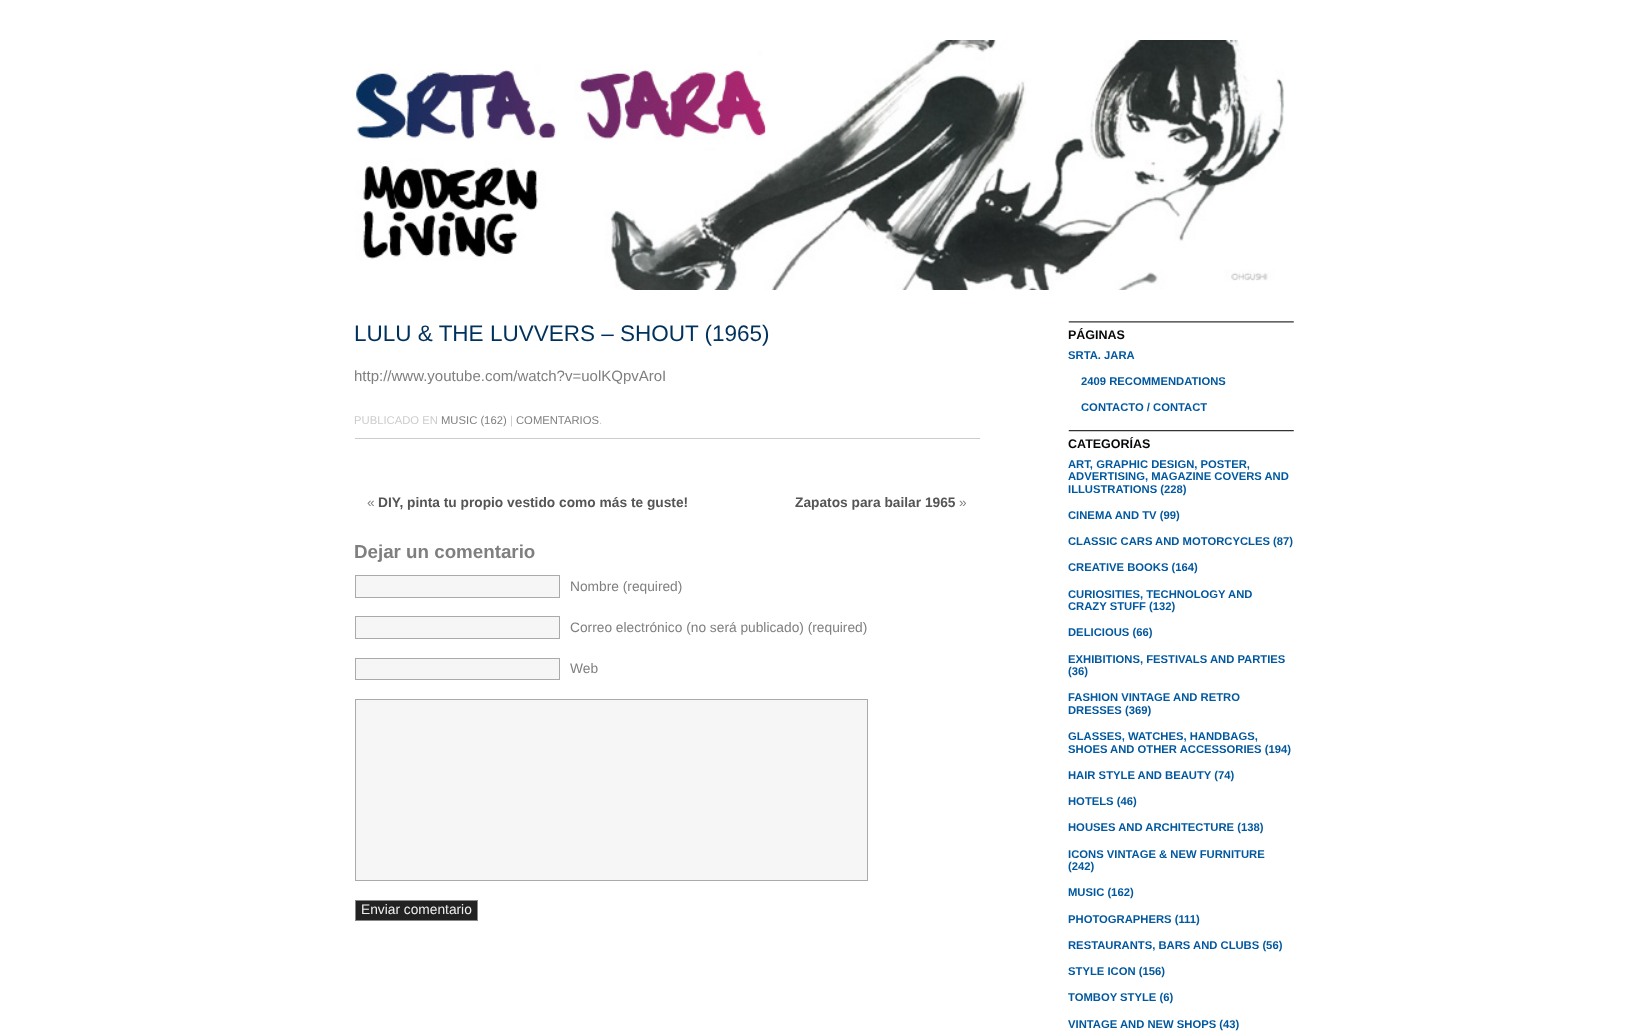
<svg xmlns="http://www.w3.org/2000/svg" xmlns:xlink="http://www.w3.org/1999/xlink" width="1647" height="1032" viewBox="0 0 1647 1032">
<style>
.cls-1{font:22.5px Liberation Sans;fill:#00315c}
.cls-2{font:15px Liberation Sans;fill:#7f7f7f}
.cls-3{font:11.25px Liberation Sans;fill:#cccccc}
.cls-4{font:11.25px Liberation Sans;fill:#7f7f7f}
.cls-5{font:13.75px Liberation Sans;fill:#7f7f7f}
.cls-6{font:bold 13.75px Liberation Sans;fill:#555555}
.cls-7{font:bold 18.75px Liberation Sans;fill:#7f7f7f}
.cls-8{font:13.75px Liberation Sans;fill:#eeeeee}
.cls-9{font:bold 12.5px Liberation Sans;fill:#070707}
.cls-10{font:bold 11.25px Liberation Sans;fill:#01589f}
</style>
<rect width="100%" height="100%" fill="#ffffff"/>
<image xlink:href="image0.png" x="355" y="40" width="930" height="250"/>
<rect fill="#cccccc" x="355" y="438" width="625" height="1"/>
<rect fill="#f6f6f6" stroke="#aaaaaa" x="355.5" y="575.5" width="204" height="22"/>
<rect fill="#f6f6f6" stroke="#aaaaaa" x="355.5" y="616.5" width="204" height="22"/>
<rect fill="#f6f6f6" stroke="#aaaaaa" x="355.5" y="658.5" width="204" height="21"/>
<rect fill="#f6f6f6" stroke="#aaaaaa" x="355.5" y="699.5" width="512" height="181"/>
<rect fill="#222222" stroke="#888888" x="355.5" y="900.5" width="122" height="20"/>
<image xlink:href="image1.png" x="1068" y="321" width="226" height="2"/>
<image xlink:href="image2.png" x="1068" y="430" width="226" height="2"/>
<text class="cls-1" x="354" y="341">LULU &amp; THE LUVVERS – SHOUT (1965)</text>
<text class="cls-2" x="354" y="381">http://www.youtube.com/watch?v=uolKQpvAroI</text>
<text class="cls-3" x="354" y="424">PUBLICADO EN</text>
<text class="cls-4" x="441" y="424">MUSIC (162)</text>
<text class="cls-3" x="510" y="424">|</text>
<text class="cls-4" x="516" y="424">COMENTARIOS</text>
<text class="cls-3" x="599" y="424">.</text>
<text class="cls-5" x="367" y="507">«</text>
<text class="cls-6" x="378" y="507">DIY, pinta tu propio vestido como más te guste!</text>
<text class="cls-6" x="795" y="507">Zapatos para bailar 1965</text>
<text class="cls-5" x="959" y="507">»</text>
<text class="cls-7" x="354" y="558">Dejar un comentario</text>
<text class="cls-5" x="570" y="591">Nombre (required)</text>
<text class="cls-5" x="570" y="632">Correo electrónico (no será publicado) (required)</text>
<text class="cls-5" x="570" y="673">Web</text>
<text class="cls-8" x="361" y="914">Enviar comentario</text>
<text class="cls-9" x="1068" y="339">PÁGINAS</text>
<text class="cls-10" x="1068" y="359">SRTA. JARA</text>
<text class="cls-10" x="1081" y="385">2409 RECOMMENDATIONS</text>
<text class="cls-10" x="1081" y="411">CONTACTO / CONTACT</text>
<text class="cls-9" x="1068" y="448">CATEGORÍAS</text>
<text class="cls-10"><tspan x="1068" y="468">ART, GRAPHIC DESIGN, POSTER,</tspan><tspan x="1068" y="480">ADVERTISING, MAGAZINE COVERS AND</tspan><tspan x="1068" y="493">ILLUSTRATIONS (228)</tspan></text>
<text class="cls-10" x="1068" y="519">CINEMA AND TV (99)</text>
<text class="cls-10" x="1068" y="545">CLASSIC CARS AND MOTORCYCLES (87)</text>
<text class="cls-10" x="1068" y="571">CREATIVE BOOKS (164)</text>
<text class="cls-10"><tspan x="1068" y="598">CURIOSITIES, TECHNOLOGY AND</tspan><tspan x="1068" y="610">CRAZY STUFF (132)</tspan></text>
<text class="cls-10" x="1068" y="636">DELICIOUS (66)</text>
<text class="cls-10"><tspan x="1068" y="663">EXHIBITIONS, FESTIVALS AND PARTIES</tspan><tspan x="1068" y="675">(36)</tspan></text>
<text class="cls-10"><tspan x="1068" y="701">FASHION VINTAGE AND RETRO</tspan><tspan x="1068" y="714">DRESSES (369)</tspan></text>
<text class="cls-10"><tspan x="1068" y="740">GLASSES, WATCHES, HANDBAGS,</tspan><tspan x="1068" y="753">SHOES AND OTHER ACCESSORIES (194)</tspan></text>
<text class="cls-10" x="1068" y="779">HAIR STYLE AND BEAUTY (74)</text>
<text class="cls-10" x="1068" y="805">HOTELS (46)</text>
<text class="cls-10" x="1068" y="831">HOUSES AND ARCHITECTURE (138)</text>
<text class="cls-10"><tspan x="1068" y="858">ICONS VINTAGE &amp; NEW FURNITURE</tspan><tspan x="1068" y="870">(242)</tspan></text>
<text class="cls-10" x="1068" y="896">MUSIC (162)</text>
<text class="cls-10" x="1068" y="923">PHOTOGRAPHERS (111)</text>
<text class="cls-10" x="1068" y="949">RESTAURANTS, BARS AND CLUBS (56)</text>
<text class="cls-10" x="1068" y="975">STYLE ICON (156)</text>
<text class="cls-10" x="1068" y="1001">TOMBOY STYLE (6)</text>
<text class="cls-10" x="1068" y="1028">VINTAGE AND NEW SHOPS (43)</text>
</svg>
